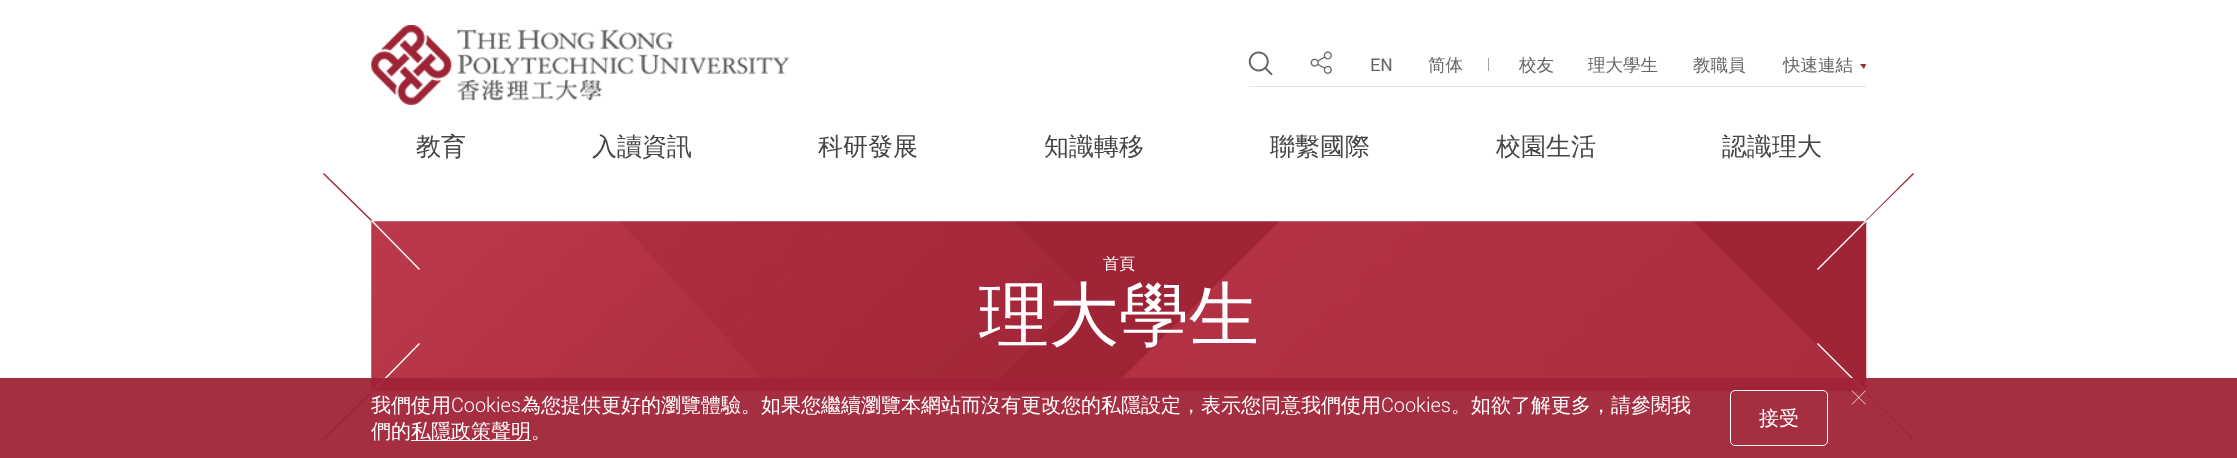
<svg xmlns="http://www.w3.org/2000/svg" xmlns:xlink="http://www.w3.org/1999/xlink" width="2237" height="458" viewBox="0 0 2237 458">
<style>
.cls-1{font:17.5px Roboto;fill:#666666}
.cls-2{font:500 17.5px WenQuanYi Zen Hei;fill:#666666}
.cls-3{font:500 25px WenQuanYi Zen Hei;fill:#454545}
.cls-4{font:500 16px WenQuanYi Zen Hei;fill:#ffffff}
.cls-5{font:500 70px WenQuanYi Zen Hei;fill:#ffffff}
.cls-6{font:500 20px WenQuanYi Zen Hei;fill:#ffffff}
.cls-7{font:300 20px Roboto;fill:#ffffff}
</style>
<rect width="100%" height="100%" fill="#ffffff"/>
<image xlink:href="image0.png" x="371" y="25" width="418" height="80"/>
<rect fill="#e4e4e4" x="1249" y="86" width="617" height="1"/>
<image xlink:href="image1.png" x="1248" y="51" width="25" height="25"/>
<image xlink:href="image2.png" x="1310" y="51" width="22" height="23"/>
<rect fill="#a3a3a3" x="1488" y="58" width="1" height="13"/>
<path fill="#a02337" d="M1860 64H1866L1864 69Z"/>
<image xlink:href="image3.png" x="371" y="221" width="1496" height="171"/>
<path fill="#a02337" d="M324 173L373 221L372 222L323 174Z"/>
<path fill="#a02337" d="M1865 221L1913 173L1914 174L1865 222Z"/>
<path fill="#ffffff" d="M372 220L420 269L419 270L371 221Z"/>
<path fill="#ffffff" d="M1817 269L1866 220L1867 221L1818 270Z"/>
<path fill="#a02337" d="M323 439L372 391L373 392L324 440Z"/>
<path fill="#ffffff" d="M371 392L419 343L420 344L372 393Z"/>
<path fill="#a02337" d="M1865 391L1914 439L1913 440L1865 392Z"/>
<path fill="#ffffff" d="M1818 343L1867 392L1866 393L1817 344Z"/>
<rect fill="#a02337" fill-opacity="0.95" x="0" y="378" width="2237" height="80"/>
<rect fill="#ffffff" x="411" y="440" width="120" height="1"/>
<rect fill="none" stroke="#ffffff" x="1730.5" y="390.5" width="97" height="55" rx="4.5"/>
<image xlink:href="image4.png" x="1851" y="390" width="15" height="15"/>
<text class="cls-1" x="1370" y="71">EN</text>
<text class="cls-2" x="1428" y="71">简体</text>
<text class="cls-2" x="1519" y="71">校友</text>
<text class="cls-2" x="1588" y="71">理大學生</text>
<text class="cls-2" x="1693" y="71">教職員</text>
<text class="cls-2" x="1783" y="71">快速連結</text>
<text class="cls-3" x="416" y="155">教育</text>
<text class="cls-3" x="592" y="155">入讀資訊</text>
<text class="cls-3" x="818" y="155">科研發展</text>
<text class="cls-3" x="1044" y="155">知識轉移</text>
<text class="cls-3" x="1270" y="155">聯繫國際</text>
<text class="cls-3" x="1496" y="155">校園生活</text>
<text class="cls-3" x="1722" y="155">認識理大</text>
<text class="cls-4" x="1103" y="269">首頁</text>
<text class="cls-5" x="979" y="339">理大學生</text>
<text class="cls-6" x="371" y="412">我們使用</text>
<text class="cls-7" x="451" y="412">Cookies</text>
<text class="cls-6" x="521" y="412">為您提供更好的瀏覽體驗。如果您繼續瀏覽本網站而沒有更改您的私隱設定，表示您同意我們使用</text>
<text class="cls-7" x="1381" y="412">Cookies</text>
<text class="cls-6" x="1451" y="412">。如欲了解更多，請參閱我</text>
<text class="cls-6" x="371" y="438">們的</text>
<text class="cls-6" x="411" y="438">私隱政策聲明。</text>
<text class="cls-6" x="1759" y="425">接受</text>
</svg>
